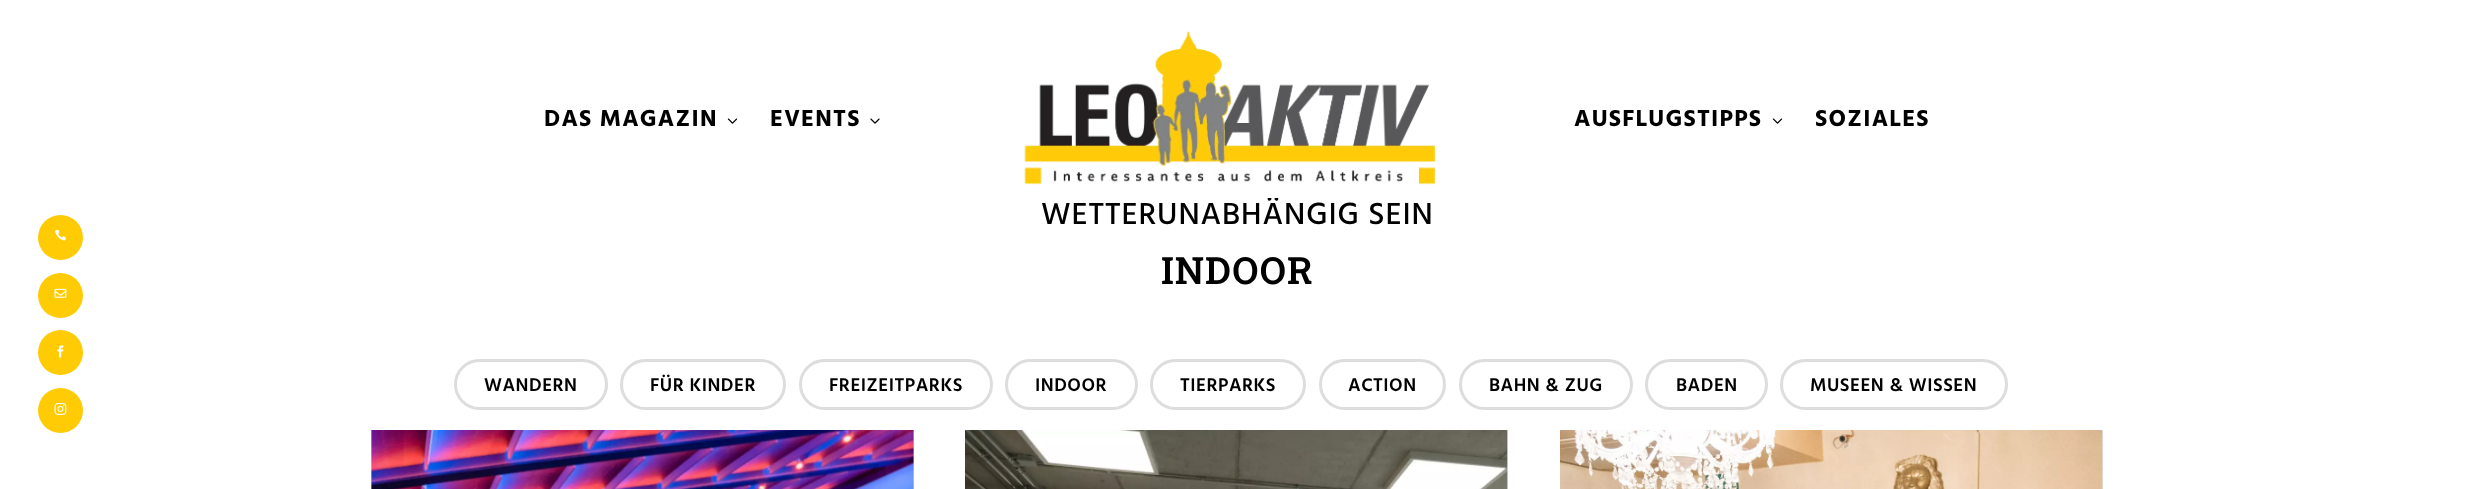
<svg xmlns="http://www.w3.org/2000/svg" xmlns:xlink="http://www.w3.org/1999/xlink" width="2473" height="489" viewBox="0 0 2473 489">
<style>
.cls-1{font:bold 23.75px Hind;letter-spacing:1.25px;fill:#000000}
.cls-2{font:500 31.25px Hind;letter-spacing:0.9px;fill:#000000}
.cls-3{font:600 37.5px Roboto Slab;letter-spacing:0.9px;fill:#000000}
.cls-4{font:600 18.75px Hind;letter-spacing:0.5px;fill:#000000}
</style>
<defs>
<clipPath id="clip1"><rect x="371" y="198" width="1732" height="50" rx="8"/></clipPath>
</defs>
<rect width="100%" height="100%" fill="#ffffff"/>
<image xlink:href="image0.png" x="727" y="118" width="11" height="6"/>
<image xlink:href="image1.png" x="870" y="118" width="10" height="6"/>
<image xlink:href="image2.png" x="1024" y="31" width="412" height="154"/>
<image xlink:href="image0.png" x="1772" y="118" width="11" height="6"/>
<circle fill="#ffcb05" cx="60.5" cy="237.5" r="22.5"/>
<image xlink:href="image3.png" x="55" y="229" width="11" height="12"/>
<circle fill="#ffcb05" cx="60.5" cy="295.5" r="22.5"/>
<image xlink:href="image4.png" x="54" y="288" width="13" height="10"/>
<circle fill="#ffcb05" cx="60.5" cy="352.5" r="22.5"/>
<image xlink:href="image5.png" x="57" y="345" width="7" height="13"/>
<circle fill="#ffcb05" cx="60.5" cy="410.5" r="22.5"/>
<image xlink:href="image6.png" x="54" y="403" width="13" height="12"/>
<rect fill="none" stroke="#dddddd" stroke-width="3" x="455.5" y="360.5" width="151" height="48" rx="24"/>
<rect fill="none" stroke="#dddddd" stroke-width="3" x="621.5" y="360.5" width="163" height="48" rx="24"/>
<rect fill="none" stroke="#dddddd" stroke-width="3" x="800.5" y="360.5" width="191" height="48" rx="24"/>
<rect fill="none" stroke="#dddddd" stroke-width="3" x="1006.5" y="360.5" width="130" height="48" rx="24"/>
<rect fill="none" stroke="#dddddd" stroke-width="3" x="1151.5" y="360.5" width="153" height="48" rx="24"/>
<rect fill="none" stroke="#dddddd" stroke-width="3" x="1320.5" y="360.5" width="124" height="48" rx="24"/>
<rect fill="none" stroke="#dddddd" stroke-width="3" x="1460.5" y="360.5" width="171" height="48" rx="24"/>
<rect fill="none" stroke="#dddddd" stroke-width="3" x="1646.5" y="360.5" width="120" height="48" rx="24"/>
<rect fill="none" stroke="#dddddd" stroke-width="3" x="1781.5" y="360.5" width="225" height="48" rx="24"/>
<rect fill="#dddddd" x="371" y="430" width="543" height="59"/>
<image xlink:href="image7.png" x="371" y="430" width="543" height="59"/>
<rect fill="#dddddd" x="1507" y="430" width="1" height="59"/>
<image xlink:href="image8.png" x="965" y="430" width="543" height="59"/>
<rect fill="#dddddd" x="2102" y="430" width="1" height="59"/>
<image xlink:href="image9.png" x="1560" y="430" width="543" height="59"/>
<text class="cls-1" x="544" y="126">DAS MAGAZIN</text>
<text class="cls-1" x="770" y="126">EVENTS</text>
<text class="cls-1" x="1574" y="126">AUSFLUGSTIPPS</text>
<text class="cls-1" x="1815" y="126">SOZIALES</text>
<g clip-path="url(#clip1)">
<text class="cls-2" x="1041" y="224">WETTERUNABHÄNGIG SEIN</text>
</g>
<text class="cls-3" x="1161" y="284">INDOOR</text>
<text class="cls-4" x="484" y="391">WANDERN</text>
<text class="cls-4" x="650" y="391">FÜR KINDER</text>
<text class="cls-4" x="829" y="391">FREIZEITPARKS</text>
<text class="cls-4" x="1035" y="391">INDOOR</text>
<text class="cls-4" x="1180" y="391">TIERPARKS</text>
<text class="cls-4" x="1348" y="391">ACTION</text>
<text class="cls-4" x="1489" y="391">BAHN &amp; ZUG</text>
<text class="cls-4" x="1676" y="391">BADEN</text>
<text class="cls-4" x="1810" y="391">MUSEEN &amp; WISSEN</text>
</svg>
